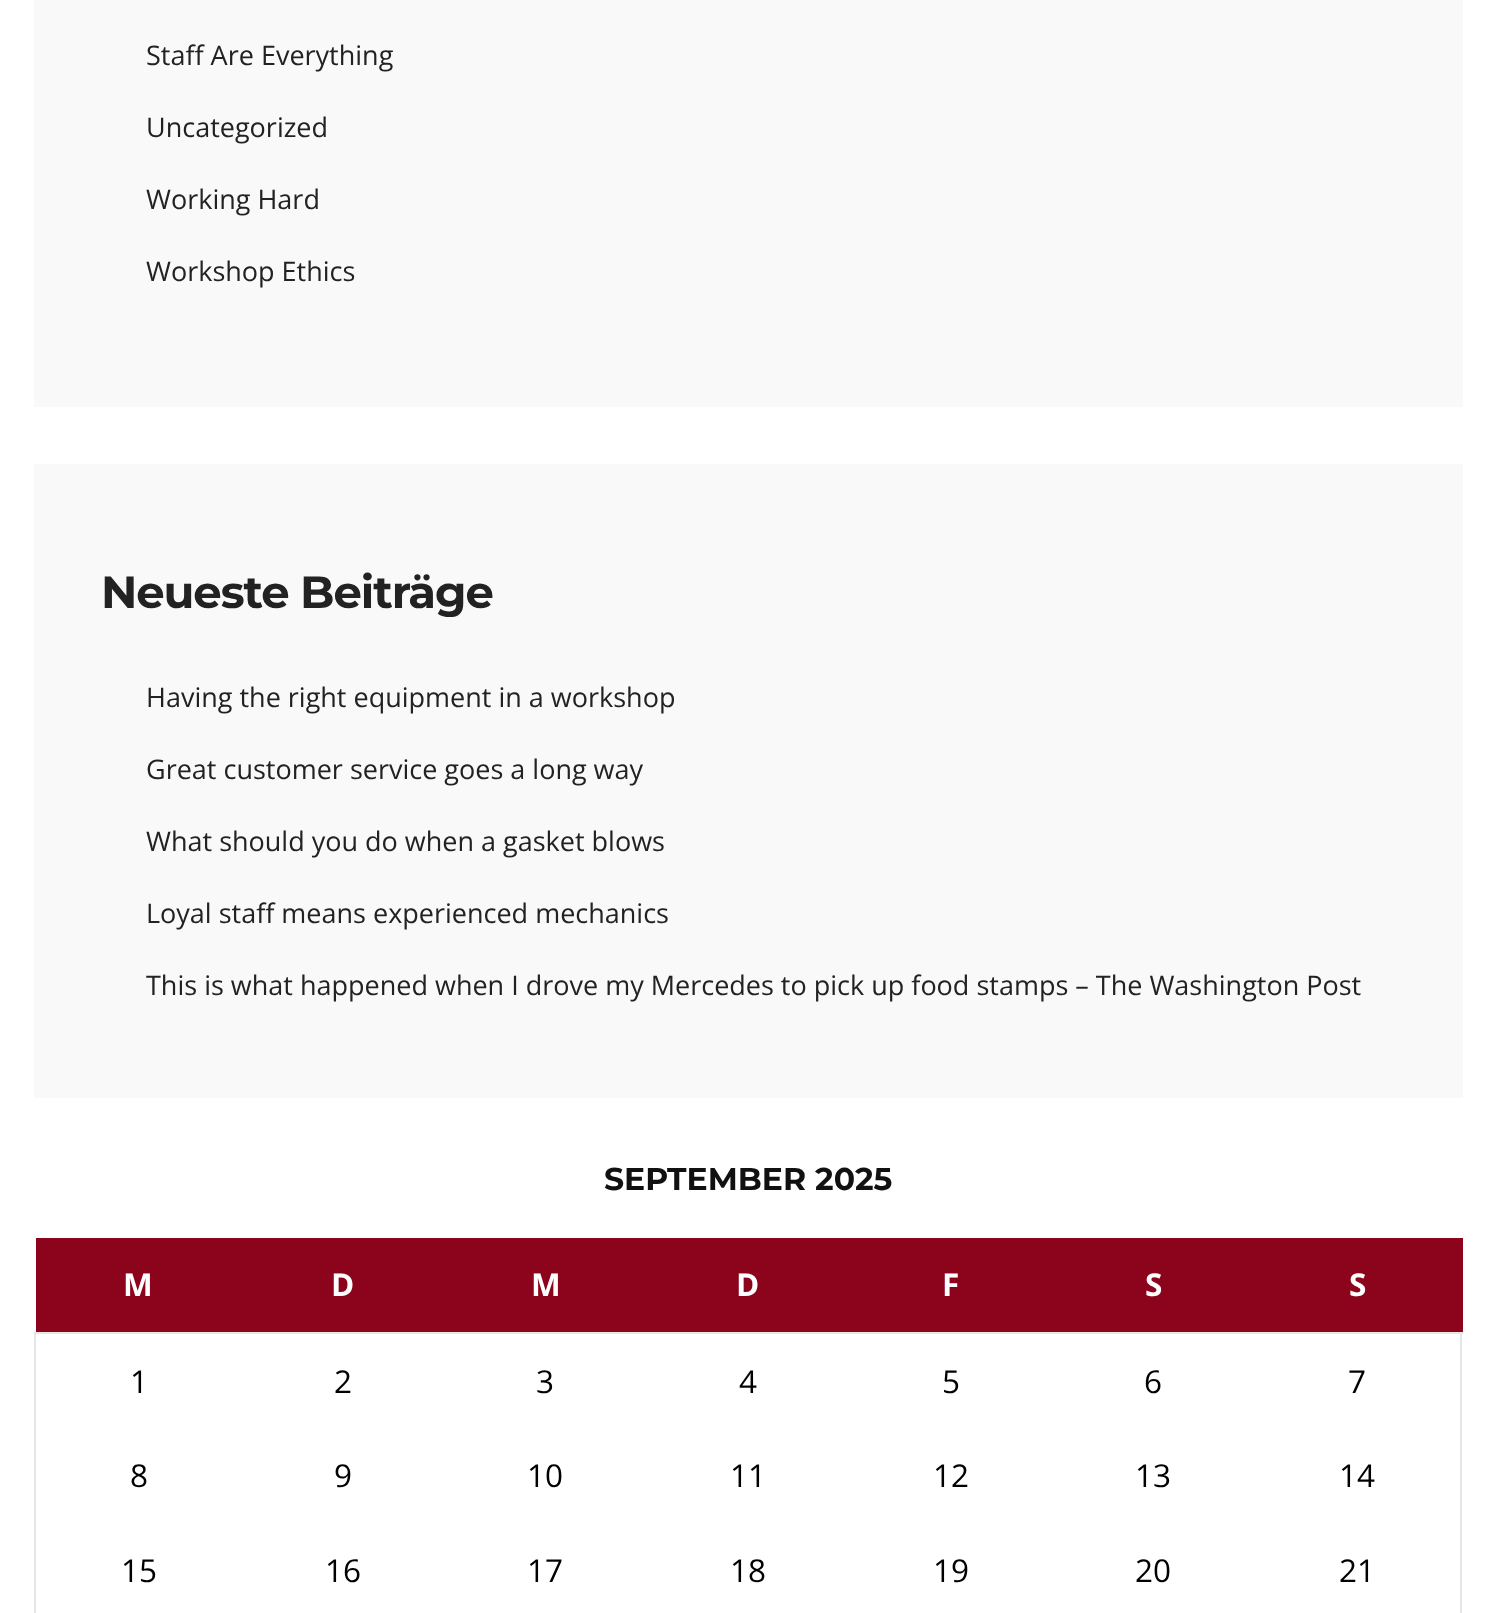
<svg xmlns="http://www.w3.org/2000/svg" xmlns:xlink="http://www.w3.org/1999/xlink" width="1495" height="1613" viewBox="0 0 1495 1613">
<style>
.cls-1{font:27px Open Sans;fill:#222222}
.cls-2{font:bold 45px Montserrat;letter-spacing:-1.1px;fill:#222222}
.cls-3{font:bold 31.5px Montserrat;fill:#111111}
.cls-4{font:bold 31.5px Open Sans;fill:#ffffff}
.cls-5{font:31.5px Open Sans;fill:#000000}
</style>
<rect width="100%" height="100%" fill="#ffffff"/>
<rect fill="#f9f9f9" x="34" y="0" width="1429" height="407"/>
<rect fill="#f9f9f9" x="34" y="464" width="1429" height="634"/>
<rect fill="#8c031c" x="36" y="1238" width="1427" height="94"/>
<rect fill="#e6e6e6" x="34" y="1332" width="1429" height="2"/>
<rect fill="#e6e6e6" x="1460" y="1332" width="2" height="281"/>
<rect fill="#e6e6e6" x="34" y="1332" width="2" height="281"/>
<text class="cls-1" x="146" y="65">Staff Are Everything</text>
<text class="cls-1" x="146" y="137">Uncategorized</text>
<text class="cls-1" x="146" y="209">Working Hard</text>
<text class="cls-1" x="146" y="281">Workshop Ethics</text>
<text class="cls-2" x="101" y="608">Neueste Beiträge</text>
<text class="cls-1" x="146" y="707">Having the right equipment in a workshop</text>
<text class="cls-1" x="146" y="779">Great customer service goes a long way</text>
<text class="cls-1" x="146" y="851">What should you do when a gasket blows</text>
<text class="cls-1" x="146" y="923">Loyal staff means experienced mechanics</text>
<text class="cls-1" x="146" y="995">This is what happened when I drove my Mercedes to pick up food stamps – The Washington Post</text>
<text class="cls-3" x="604" y="1190">SEPTEMBER 2025</text>
<text class="cls-4" x="123" y="1296">M</text>
<text class="cls-4" x="331" y="1296">D</text>
<text class="cls-4" x="531" y="1296">M</text>
<text class="cls-4" x="736" y="1296">D</text>
<text class="cls-4" x="942" y="1296">F</text>
<text class="cls-4" x="1145" y="1296">S</text>
<text class="cls-4" x="1349" y="1296">S</text>
<text class="cls-5" x="130" y="1393">1</text>
<text class="cls-5" x="334" y="1393">2</text>
<text class="cls-5" x="536" y="1393">3</text>
<text class="cls-5" x="739" y="1393">4</text>
<text class="cls-5" x="942" y="1393">5</text>
<text class="cls-5" x="1144" y="1393">6</text>
<text class="cls-5" x="1348" y="1393">7</text>
<text class="cls-5" x="130" y="1487">8</text>
<text class="cls-5" x="334" y="1487">9</text>
<text class="cls-5" x="527" y="1487">10</text>
<text class="cls-5" x="730" y="1487">11</text>
<text class="cls-5" x="933" y="1487">12</text>
<text class="cls-5" x="1135" y="1487">13</text>
<text class="cls-5" x="1339" y="1487">14</text>
<text class="cls-5" x="121" y="1582">15</text>
<text class="cls-5" x="325" y="1582">16</text>
<text class="cls-5" x="527" y="1582">17</text>
<text class="cls-5" x="730" y="1582">18</text>
<text class="cls-5" x="933" y="1582">19</text>
<text class="cls-5" x="1135" y="1582">20</text>
<text class="cls-5" x="1339" y="1582">21</text>
</svg>
